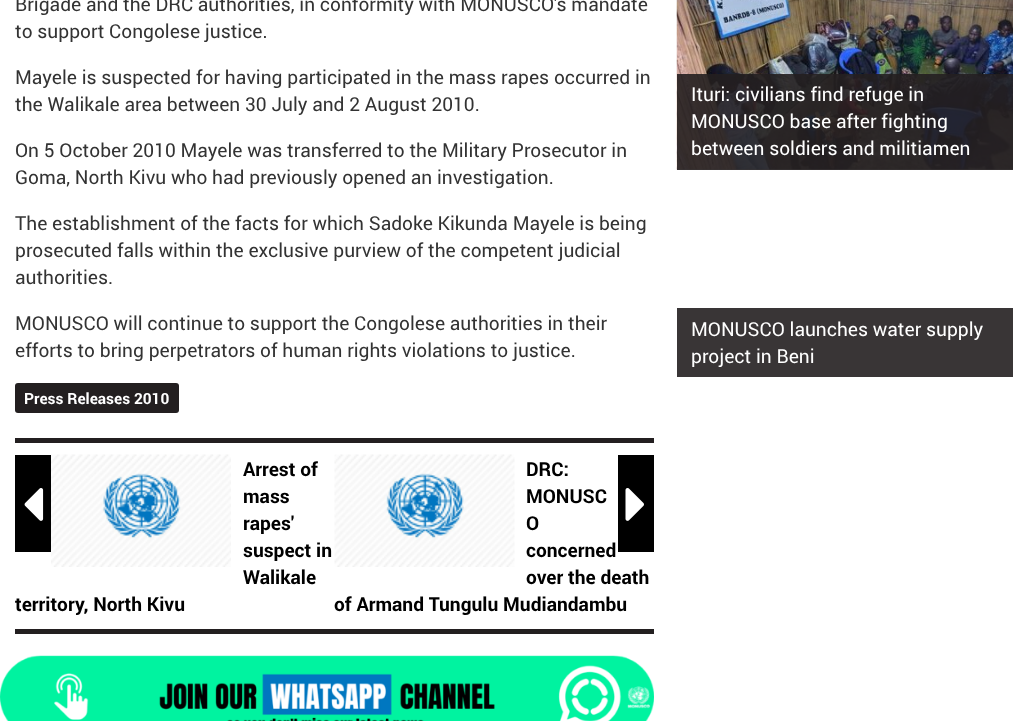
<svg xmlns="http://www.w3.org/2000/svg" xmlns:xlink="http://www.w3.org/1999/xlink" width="1013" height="721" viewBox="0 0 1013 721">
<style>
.cls-1{font:19.2px Roboto;fill:#333333}
.cls-2{font:bold 15.4px Roboto;fill:#ffffff}
.cls-3{font:bold 19.2px Roboto;fill:#000000}
.cls-4{font:19.2px Roboto;fill:#ffffff}
</style>
<rect width="100%" height="100%" fill="#ffffff"/>
<rect fill="#231f20" x="15" y="383" width="164" height="30" rx="3"/>
<rect fill="#231f20" x="15" y="438" width="639" height="5"/>
<rect fill="#231f20" x="15" y="629" width="639" height="5"/>
<rect fill="#000000" x="15" y="455" width="36" height="97"/>
<image xlink:href="image0.png" x="24" y="488" width="20" height="33"/>
<image xlink:href="image1.png" x="51" y="454" width="180" height="113"/>
<image xlink:href="image2.png" x="334" y="454" width="181" height="113"/>
<rect fill="#000000" x="618" y="455" width="36" height="97"/>
<image xlink:href="image3.png" x="625" y="488" width="19" height="33"/>
<image xlink:href="image4.png" x="0" y="655" width="654" height="66"/>
<image xlink:href="image5.png" x="676" y="0" width="337" height="170"/>
<rect fill="#231f20" fill-opacity="0.9" x="677" y="74" width="336" height="96"/>
<rect fill="#393536" x="677" y="308" width="336" height="69"/>
<text class="cls-1"><tspan x="15" y="11">Brigade and the DRC authorities, in conformity with MONUSCO's mandate</tspan><tspan x="15" y="38">to support Congolese justice.</tspan></text>
<text class="cls-1"><tspan x="15" y="84">Mayele is suspected for having participated in the mass rapes occurred in</tspan><tspan x="15" y="111">the Walikale area between 30 July and 2 August 2010.</tspan></text>
<text class="cls-1"><tspan x="15" y="157">On 5 October 2010 Mayele was transferred to the Military Prosecutor in</tspan><tspan x="15" y="184">Goma, North Kivu who had previously opened an investigation.</tspan></text>
<text class="cls-1"><tspan x="15" y="230">The establishment of the facts for which Sadoke Kikunda Mayele is being</tspan><tspan x="15" y="257">prosecuted falls within the exclusive purview of the competent judicial</tspan><tspan x="15" y="284">authorities.</tspan></text>
<text class="cls-1"><tspan x="15" y="330">MONUSCO will continue to support the Congolese authorities in their</tspan><tspan x="15" y="357">efforts to bring perpetrators of human rights violations to justice.</tspan></text>
<text class="cls-2" x="24" y="404">Press Releases 2010</text>
<text class="cls-3"><tspan x="243" y="476">Arrest of</tspan><tspan x="243" y="503">mass</tspan><tspan x="243" y="530">rapes'</tspan><tspan x="243" y="557">suspect in</tspan><tspan x="243" y="584">Walikale</tspan></text>
<text class="cls-3" x="15" y="611">territory, North Kivu</text>
<text class="cls-3"><tspan x="526" y="476">DRC:</tspan><tspan x="526" y="503">MONUSC</tspan><tspan x="526" y="530">O</tspan><tspan x="526" y="557">concerned</tspan><tspan x="526" y="584">over the death</tspan></text>
<text class="cls-3" x="334" y="611">of Armand Tungulu Mudiandambu</text>
<text class="cls-4"><tspan x="691" y="101">Ituri: civilians find refuge in</tspan><tspan x="691" y="128">MONUSCO base after fighting</tspan><tspan x="691" y="155">between soldiers and militiamen</tspan></text>
<text class="cls-4"><tspan x="691" y="336">MONUSCO launches water supply</tspan><tspan x="691" y="363">project in Beni</tspan></text>
</svg>
